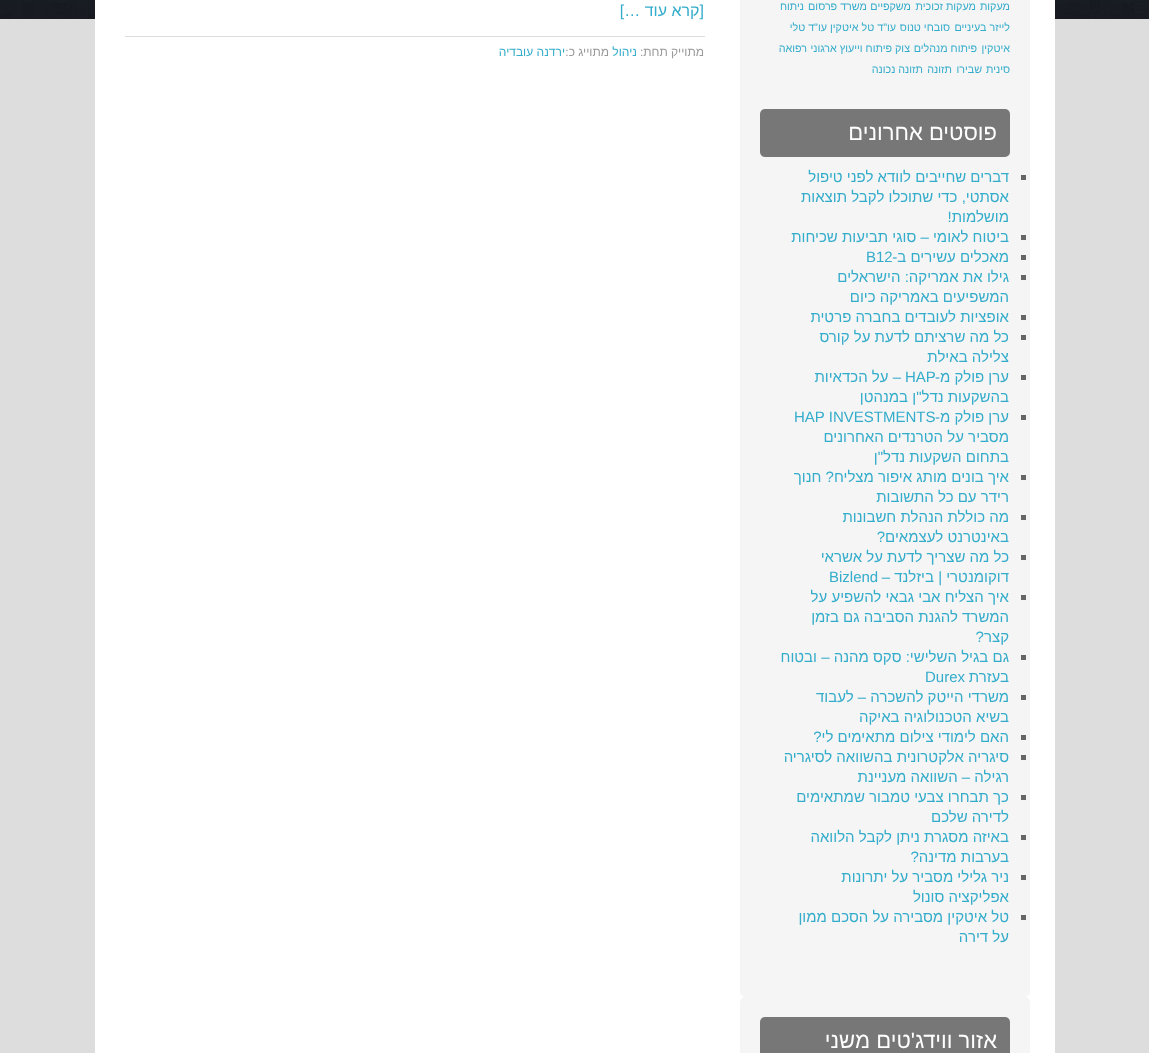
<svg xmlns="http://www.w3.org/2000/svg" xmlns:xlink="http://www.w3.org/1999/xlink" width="1149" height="1053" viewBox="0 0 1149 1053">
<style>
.cls-1{font:10.75px Liberation Sans;direction:rtl;fill:#34accb}
.cls-2{font:22px Liberation Sans;direction:rtl;fill:#ffffff}
.cls-3{font:15px Liberation Sans;direction:rtl;fill:#34accb}
.cls-4{font:15px Liberation Sans;fill:#34accb}
.cls-5{font:16px Liberation Sans;direction:rtl;fill:#34accb}
.cls-6{font:12px Liberation Sans;direction:rtl;fill:#999999}
.cls-7{font:12px Liberation Sans;direction:rtl;fill:#34accb}
</style>
<rect width="100%" height="100%" fill="#dddddd"/>
<image xlink:href="image0.png" x="0" y="0" width="1149" height="19"/>
<rect fill="#ffffff" x="95" y="0" width="960" height="1053"/>
<rect fill="#f5f5f5" x="740" y="-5" width="290" height="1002" rx="5"/>
<rect fill="#777777" x="760" y="109" width="250" height="48" rx="5"/>
<rect fill="#666666" x="1021" y="175" width="5" height="5"/>
<rect fill="#666666" x="1021" y="235" width="5" height="5"/>
<rect fill="#666666" x="1021" y="255" width="5" height="5"/>
<rect fill="#666666" x="1021" y="275" width="5" height="5"/>
<rect fill="#666666" x="1021" y="315" width="5" height="5"/>
<rect fill="#666666" x="1021" y="335" width="5" height="5"/>
<rect fill="#666666" x="1021" y="375" width="5" height="5"/>
<rect fill="#666666" x="1021" y="415" width="5" height="5"/>
<rect fill="#666666" x="1021" y="475" width="5" height="5"/>
<rect fill="#666666" x="1021" y="515" width="5" height="5"/>
<rect fill="#666666" x="1021" y="555" width="5" height="5"/>
<rect fill="#666666" x="1021" y="595" width="5" height="5"/>
<rect fill="#666666" x="1021" y="655" width="5" height="5"/>
<rect fill="#666666" x="1021" y="695" width="5" height="5"/>
<rect fill="#666666" x="1021" y="735" width="5" height="5"/>
<rect fill="#666666" x="1021" y="755" width="5" height="5"/>
<rect fill="#666666" x="1021" y="795" width="5" height="5"/>
<rect fill="#666666" x="1021" y="835" width="5" height="5"/>
<rect fill="#666666" x="1021" y="875" width="5" height="5"/>
<rect fill="#666666" x="1021" y="915" width="5" height="5"/>
<rect fill="#dddddd" x="125" y="36" width="580" height="1"/>
<rect fill="#f5f5f5" x="740" y="997" width="290" height="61" rx="5"/>
<rect fill="#777777" x="760" y="1017" width="250" height="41" rx="5"/>
<text class="cls-1" x="1010" y="10">מעקות</text>
<text class="cls-1" x="976" y="10">מעקות זכוכית</text>
<text class="cls-1" x="911" y="10">משקפיים</text>
<text class="cls-1" x="867" y="10">משרד פרסום</text>
<text class="cls-1" x="804" y="10">ניתוח</text>
<text class="cls-1" x="1010" y="31">לייזר בעיניים</text>
<text class="cls-1" x="950" y="31">סובחי טנוס</text>
<text class="cls-1" x="896" y="31">עו"ד טל איטקין</text>
<text class="cls-1" x="827" y="31">עו"ד טלי</text>
<text class="cls-1" x="1010" y="52">איטקין</text>
<text class="cls-1" x="977" y="52">פיתוח מנהלים</text>
<text class="cls-1" x="910" y="52">צוק פיתוח וייעוץ ארגוני</text>
<text class="cls-1" x="807" y="52">רפואה</text>
<text class="cls-1" x="1010" y="73">סינית</text>
<text class="cls-1" x="982" y="73">שבירו</text>
<text class="cls-1" x="952" y="73">תזונה</text>
<text class="cls-1" x="923" y="73">תזונה נכונה</text>
<text class="cls-2" x="997" y="140">פוסטים אחרונים</text>
<text class="cls-3"><tspan x="1009" y="182">דברים שחייבים לוודא לפני טיפול</tspan><tspan x="1009" y="202">אסתטי, כדי שתוכלו לקבל תוצאות</tspan><tspan x="1009" y="222">מושלמות!</tspan><tspan x="1009" y="242">ביטוח לאומי – סוגי תביעות שכיחות</tspan><tspan x="1009" y="262">מאכלים עשירים ב-</tspan></text>
<text class="cls-4" x="866" y="262">B12</text>
<text class="cls-3"><tspan x="1009" y="282">גילו את אמריקה: הישראלים</tspan><tspan x="1009" y="302">המשפיעים באמריקה כיום</tspan><tspan x="1009" y="322">אופציות לעובדים בחברה פרטית</tspan><tspan x="1009" y="342">כל מה שרציתם לדעת על קורס</tspan><tspan x="1009" y="362">צלילה באילת</tspan><tspan x="1009" y="382">ערן פולק מ-</tspan></text>
<text class="cls-4" x="905" y="382">HAP</text>
<text class="cls-3" x="901" y="382">– על הכדאיות</text>
<text class="cls-3"><tspan x="1009" y="402">בהשקעות נדל"ן במנהטן</tspan><tspan x="1009" y="422">ערן פולק מ-</tspan></text>
<text class="cls-4" x="794" y="422">HAP INVESTMENTS</text>
<text class="cls-3"><tspan x="1009" y="442">מסביר על הטרנדים האחרונים</tspan><tspan x="1009" y="462">בתחום השקעות נדל"ן</tspan><tspan x="1009" y="482">איך בונים מותג איפור מצליח? חנוך</tspan><tspan x="1009" y="502">רידר עם כל התשובות</tspan><tspan x="1009" y="522">מה כוללת הנהלת חשבונות</tspan><tspan x="1009" y="542">באינטרנט לעצמאים?</tspan><tspan x="1009" y="562">כל מה שצריך לדעת על אשראי</tspan><tspan x="1009" y="582">דוקומנטרי | ביזלנד –</tspan></text>
<text class="cls-4" x="829" y="582">Bizlend</text>
<text class="cls-3"><tspan x="1009" y="602">איך הצליח אבי גבאי להשפיע על</tspan><tspan x="1009" y="622">המשרד להגנת הסביבה גם בזמן</tspan><tspan x="1009" y="642">קצר?</tspan><tspan x="1009" y="662">גם בגיל השלישי: סקס מהנה – ובטוח</tspan><tspan x="1009" y="682">בעזרת</tspan></text>
<text class="cls-4" x="925" y="682">Durex</text>
<text class="cls-3"><tspan x="1009" y="702">משרדי הייטק להשכרה – לעבוד</tspan><tspan x="1009" y="722">בשיא הטכנולוגיה באיקה</tspan><tspan x="1009" y="742">האם לימודי צילום מתאימים לי?</tspan><tspan x="1009" y="762">סיגריה אלקטרונית בהשוואה לסיגריה</tspan><tspan x="1009" y="782">רגילה – השוואה מעניינת</tspan><tspan x="1009" y="802">כך תבחרו צבעי טמבור שמתאימים</tspan><tspan x="1009" y="822">לדירה שלכם</tspan><tspan x="1009" y="842">באיזה מסגרת ניתן לקבל הלוואה</tspan><tspan x="1009" y="862">בערבות מדינה?</tspan><tspan x="1009" y="882">ניר גלילי מסביר על יתרונות</tspan><tspan x="1009" y="902">אפליקציה סונול</tspan><tspan x="1009" y="922">טל איטקין מסבירה על הסכם ממון</tspan><tspan x="1009" y="942">על דירה</tspan></text>
<text class="cls-5" x="704" y="16">[קרא עוד …]</text>
<text class="cls-6" x="704" y="56">מתוייק תחת:</text>
<text class="cls-7" x="637" y="56">ניהול</text>
<text class="cls-6" x="609" y="56">מתוייג כ:</text>
<text class="cls-7" x="565" y="56">ירדנה עובדיה</text>
<text class="cls-2" x="997" y="1048">אזור ווידג'טים משני</text>
</svg>
